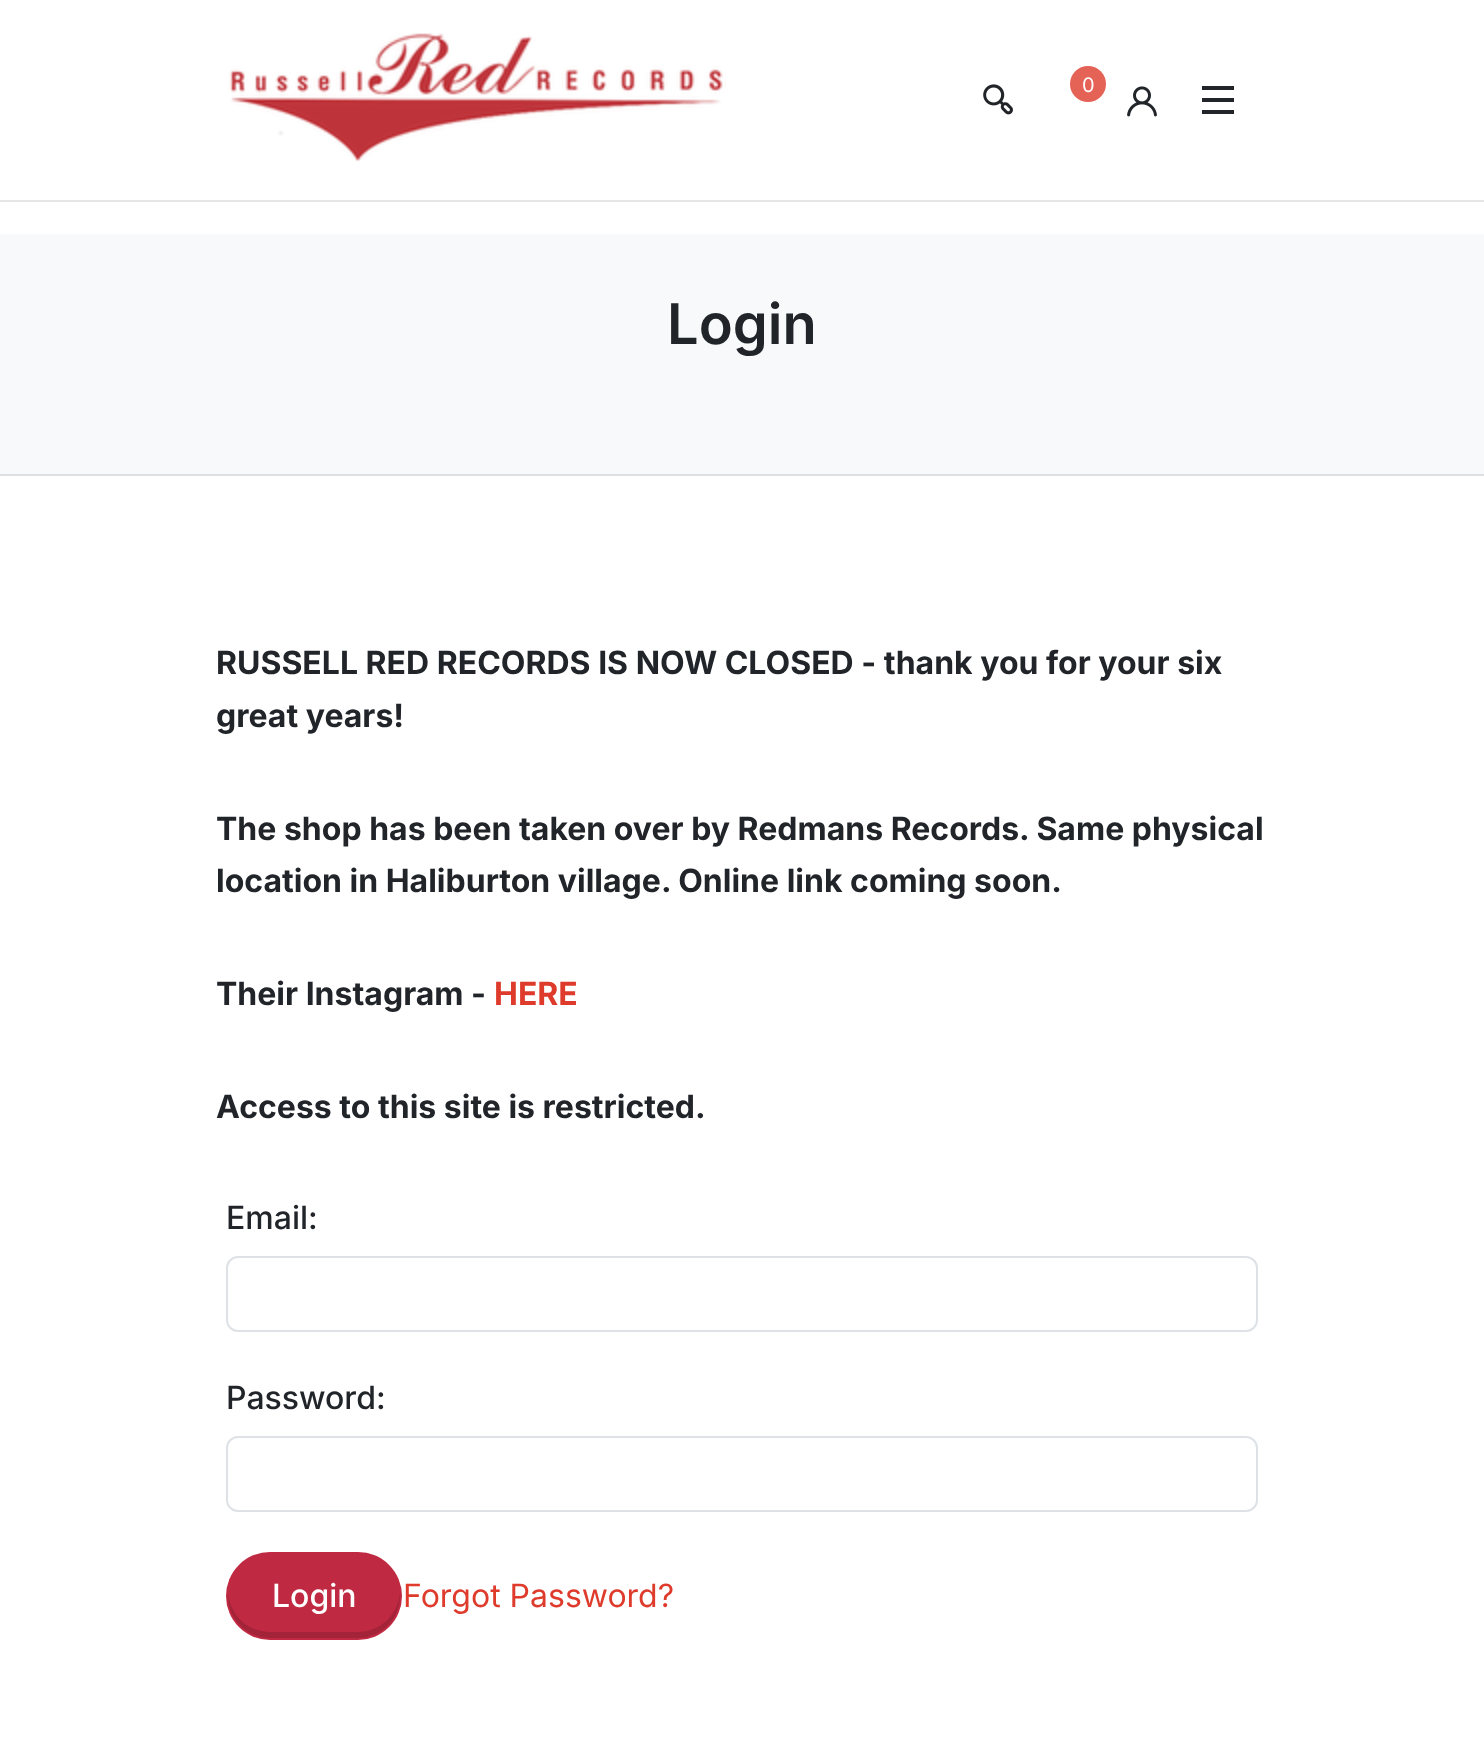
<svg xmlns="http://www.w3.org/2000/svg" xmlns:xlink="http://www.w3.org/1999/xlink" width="1484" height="1753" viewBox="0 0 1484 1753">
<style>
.cls-1{font:20px Inter;fill:#ffffff}
.cls-2{font:600 56px Inter;fill:#212529}
.cls-3{font:bold 32px Inter;fill:#212529}
.cls-4{font:bold 32px Inter;fill:#de3b2c}
.cls-5{font:500 32px Inter;fill:#212529}
.cls-6{font:500 32px Inter;fill:#ffffff}
.cls-7{font:32px Inter;fill:#de3b2c}
</style>
<rect width="100%" height="100%" fill="#ffffff"/>
<rect fill="#e6e6e6" x="0" y="200" width="1484" height="2"/>
<image xlink:href="image0.png" x="229" y="33" width="497" height="129"/>
<image xlink:href="image1.png" x="983" y="84" width="30" height="31"/>
<circle fill="#e56256" cx="1088" cy="84" r="18"/>
<image xlink:href="image2.png" x="1127" y="86" width="30" height="31"/>
<rect fill="#212529" x="1202" y="98" width="32" height="4"/>
<rect fill="#212529" x="1202" y="86" width="32" height="4"/>
<rect fill="#212529" x="1202" y="110" width="32" height="4"/>
<rect fill="#f8f9fa" x="0" y="234" width="1484" height="240"/>
<rect fill="#dfe0e1" x="0" y="474" width="1484" height="2"/>
<rect fill="none" stroke="#dee2e6" stroke-width="2" x="227" y="1257" width="1030" height="74" rx="11"/>
<rect fill="none" stroke="#dee2e6" stroke-width="2" x="227" y="1437" width="1030" height="74" rx="11"/>
<rect fill="#c02942" x="226" y="1552" width="176" height="88" rx="44"/>
<path fill="#a32338" d="M228 1593V1596C228 1619 247 1638 270 1638H358C381 1638 400 1619 400 1596V1593C398 1615 380 1632 358 1632H270C248 1632 230 1615 228 1593Z"/>
<text class="cls-1" x="1082" y="92">0</text>
<text class="cls-2" x="667" y="344">Login</text>
<text class="cls-3"><tspan x="216" y="674">RUSSELL RED RECORDS IS NOW CLOSED - thank you for your six</tspan><tspan x="216" y="727">great years!</tspan></text>
<text class="cls-3"><tspan x="216" y="840">The shop has been taken over by Redmans Records. Same physical</tspan><tspan x="216" y="892">location in Haliburton village. Online link coming soon.</tspan></text>
<text class="cls-3" x="216" y="1005">Their Instagram -</text>
<text class="cls-4" x="494" y="1005">HERE</text>
<text class="cls-3" x="216" y="1118">Access to this site is restricted.</text>
<text class="cls-5" x="226" y="1229">Email:</text>
<text class="cls-5" x="226" y="1409">Password:</text>
<text class="cls-6" x="272" y="1607">Login</text>
<text class="cls-7" x="403" y="1607">Forgot Password?</text>
</svg>
